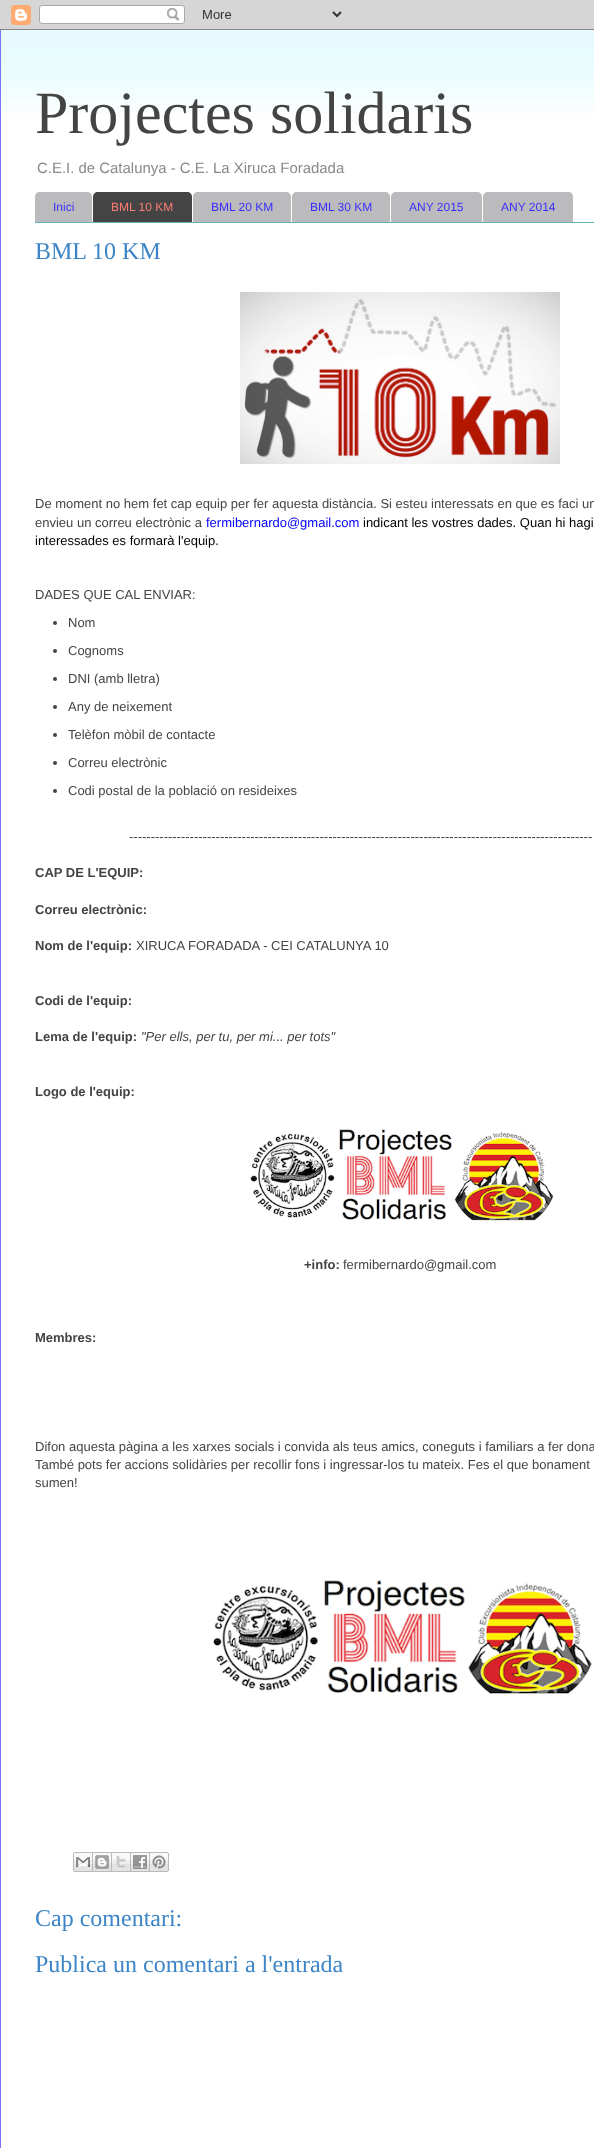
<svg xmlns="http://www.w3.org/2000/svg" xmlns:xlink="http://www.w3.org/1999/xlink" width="594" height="2148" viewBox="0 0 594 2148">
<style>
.cls-1{font:60px Liberation Serif;fill:#444444}
.cls-2{font:14.95px Liberation Sans;fill:#898989}
.cls-3{font:12px Liberation Sans;fill:#3c2ffb}
.cls-4{font:12px Liberation Sans;fill:#fb7c73}
.cls-5{font:24px Liberation Serif;fill:#3d85c6}
.cls-6{font:13px Liberation Sans;fill:#444444}
.cls-7{font:13px Liberation Sans;fill:#0000ff}
.cls-8{font:13px Liberation Sans;fill:#000000}
.cls-9{font:bold 13px Liberation Sans;fill:#444444}
.cls-10{font:italic 13px Liberation Sans;fill:#444444}
</style>
<rect width="100%" height="100%" fill="#bbbbbd"/>
<image xlink:href="image0.png" x="0" y="0" width="594" height="30"/>
<rect fill="#ffffff" x="1" y="30" width="593" height="2118"/>
<image xlink:href="image1.png" x="1" y="30" width="593" height="84"/>
<rect fill="#7c73fb" x="0" y="30" width="1" height="2118"/>
<rect fill="#65b2ba" x="35" y="222" width="559" height="1"/>
<path fill="#bbbbbd" d="M40 192H87C90 192 92 194 92 197V222H35V197C35 194 37 192 40 192Z"/>
<path fill="#444444" d="M98 192H187C190 192 192 194 192 197V222H93V197C93 194 95 192 98 192Z"/>
<path fill="#bbbbbd" d="M198 192H286C289 192 291 194 291 197V222H193V197C193 194 195 192 198 192Z"/>
<path fill="#bbbbbd" d="M297 192H385C388 192 390 194 390 197V222H292V197C292 194 294 192 297 192Z"/>
<path fill="#bbbbbd" d="M396 192H477C480 192 482 194 482 197V222H391V197C391 194 393 192 396 192Z"/>
<path fill="#bbbbbd" d="M488 192H568C571 192 573 194 573 197V222H483V197C483 194 485 192 488 192Z"/>
<image xlink:href="image2.png" x="240" y="292" width="320" height="172"/>
<circle fill="#444444" cx="55" cy="623" r="2"/>
<circle fill="#444444" cx="55" cy="651" r="2"/>
<circle fill="#444444" cx="55" cy="679" r="2"/>
<circle fill="#444444" cx="55" cy="707" r="2"/>
<circle fill="#444444" cx="55" cy="735" r="2"/>
<circle fill="#444444" cx="55" cy="763" r="2"/>
<circle fill="#444444" cx="55" cy="791" r="2"/>
<image xlink:href="image3.png" x="250" y="1129" width="304" height="92"/>
<image xlink:href="image4.png" x="213" y="1580" width="379" height="114"/>
<image xlink:href="image5.png" x="73" y="1852" width="20" height="20"/>
<image xlink:href="image6.png" x="93" y="1852" width="19" height="20"/>
<image xlink:href="image7.png" x="112" y="1852" width="19" height="20"/>
<image xlink:href="image8.png" x="131" y="1852" width="19" height="20"/>
<image xlink:href="image9.png" x="150" y="1852" width="19" height="20"/>
<text class="cls-1" x="35" y="133">Projectes solidaris</text>
<text class="cls-2" x="37" y="173">C.E.I. de Catalunya - C.E. La Xiruca Foradada</text>
<text class="cls-3" x="53" y="211">Inici</text>
<text class="cls-4" x="111" y="211">BML 10 KM</text>
<text class="cls-3" x="211" y="211">BML 20 KM</text>
<text class="cls-3" x="310" y="211">BML 30 KM</text>
<text class="cls-3" x="409" y="211">ANY 2015</text>
<text class="cls-3" x="501" y="211">ANY 2014</text>
<text class="cls-5" x="35" y="259">BML 10 KM</text>
<text class="cls-6"><tspan x="35" y="508">De moment no hem fet cap equip per fer aquesta distància. Si esteu interessats en que es faci un</tspan><tspan x="35" y="527">envieu un correu electrònic a</tspan></text>
<text class="cls-7" x="206" y="527">fermibernardo@gmail.com</text>
<text class="cls-8" x="363" y="527">indicant les vostres dades. Quan hi hagi</text>
<text class="cls-8" x="35" y="545">interessades es formarà l'equip.</text>
<text class="cls-6" x="35" y="599">DADES QUE CAL ENVIAR:</text>
<text class="cls-6" x="68" y="627">Nom</text>
<text class="cls-6" x="68" y="655">Cognoms</text>
<text class="cls-6" x="68" y="683">DNI (amb lletra)</text>
<text class="cls-6" x="68" y="711">Any de neixement</text>
<text class="cls-6" x="68" y="739">Telèfon mòbil de contacte</text>
<text class="cls-6" x="68" y="767">Correu electrònic</text>
<text class="cls-6" x="68" y="795">Codi postal de la població on resideixes</text>
<text class="cls-6" x="129" y="841">-----------------------------------------------------------------------------------------------------------</text>
<text class="cls-9" x="35" y="877">CAP DE L'EQUIP:</text>
<text class="cls-9" x="35" y="914">Correu electrònic:</text>
<text class="cls-9" x="35" y="950">Nom de l'equip:</text>
<text class="cls-6" x="136" y="950">XIRUCA FORADADA - CEI CATALUNYA 10</text>
<text class="cls-9" x="35" y="1005">Codi de l'equip:</text>
<text class="cls-9" x="35" y="1041">Lema de l'equip:</text>
<text class="cls-10" x="141" y="1041">"Per ells, per tu, per mi... per tots"</text>
<text class="cls-9" x="35" y="1096">Logo de l'equip:</text>
<text class="cls-9" x="304" y="1269">+info:</text>
<text class="cls-6" x="343" y="1269">fermibernardo@gmail.com</text>
<text class="cls-9" x="35" y="1342">Membres:</text>
<text class="cls-6"><tspan x="35" y="1451">Difon aquesta pàgina a les xarxes socials i convida als teus amics, coneguts i familiars a fer dona</tspan><tspan x="35" y="1469">També pots fer accions solidàries per recollir fons i ingressar-los tu mateix. Fes el que bonament</tspan><tspan x="35" y="1487">sumen!</tspan></text>
<text class="cls-5"><tspan x="35" y="1926">Cap comentari:</tspan><tspan x="35" y="1972">Publica un comentari a l'entrada</tspan></text>
</svg>
